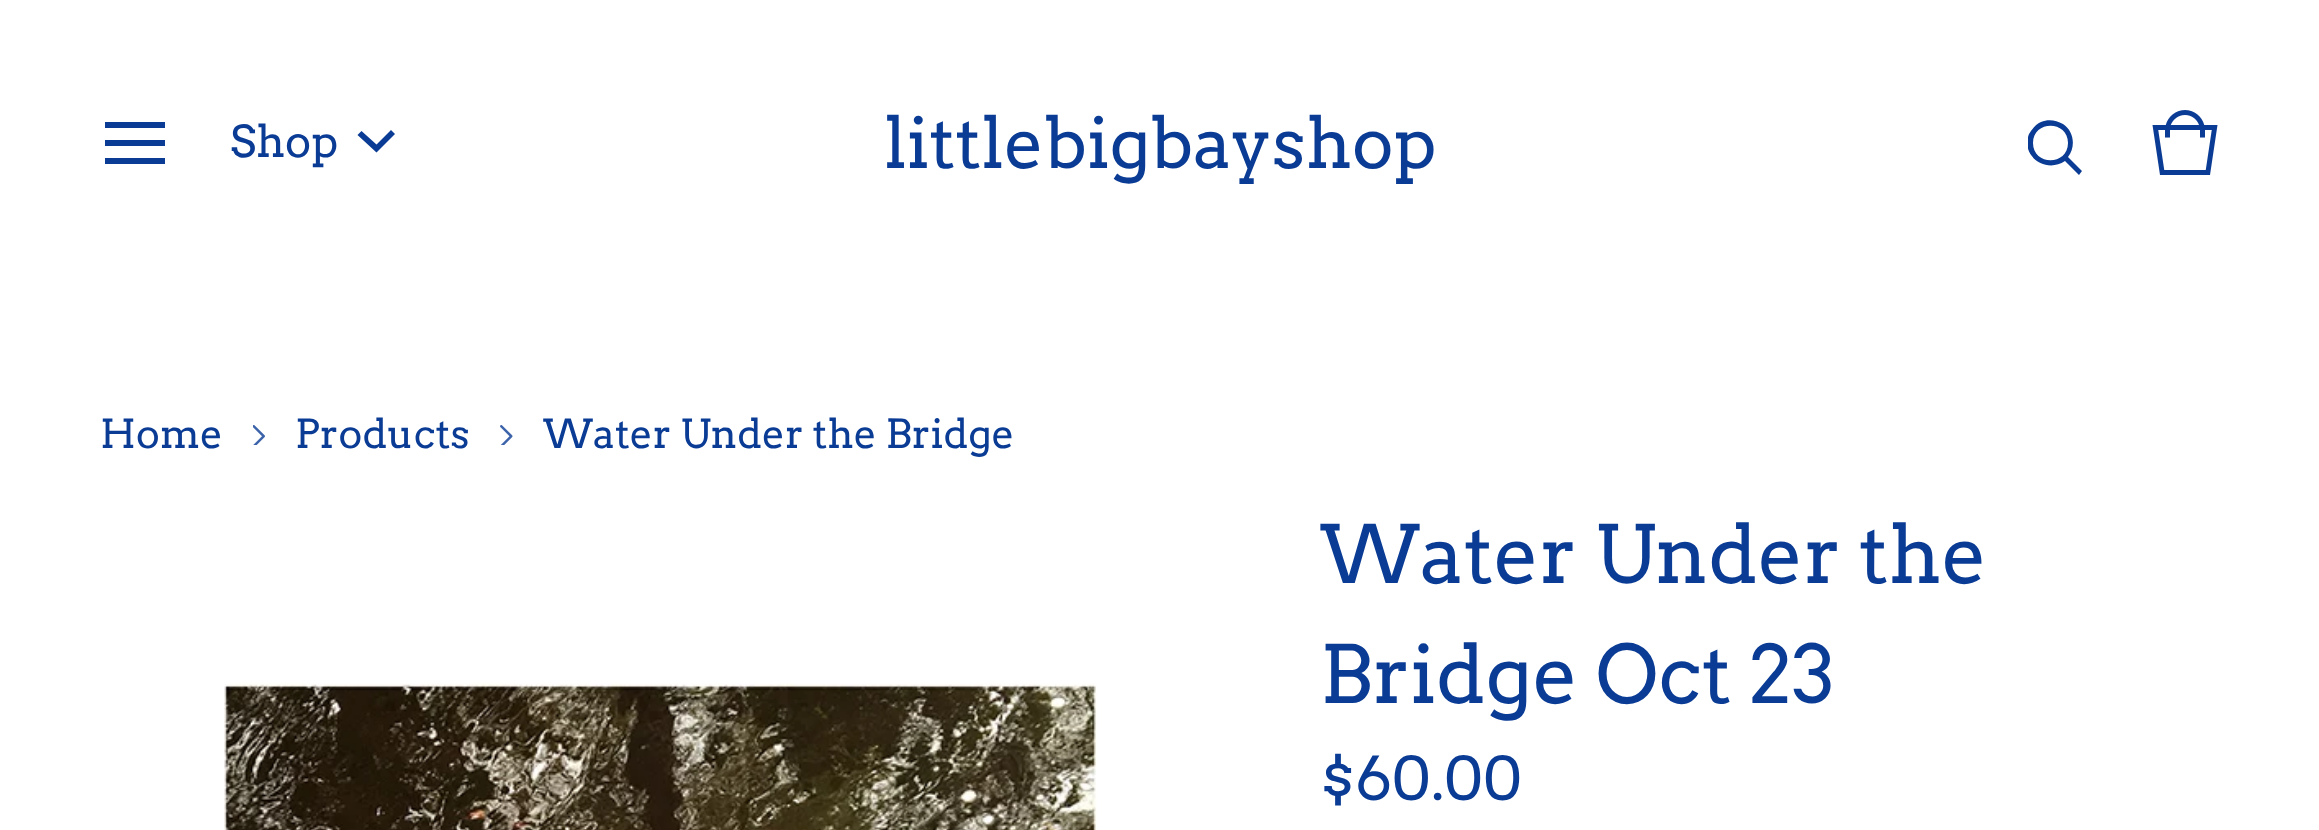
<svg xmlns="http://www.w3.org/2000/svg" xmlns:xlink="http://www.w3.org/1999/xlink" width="2319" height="830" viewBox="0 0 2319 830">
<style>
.cls-1{font:44px Arvo;fill:#0b3c95}
.cls-2{font:70px Arvo;fill:#0b3c95}
.cls-3{font:40px Arvo;fill:#0b3c95}
.cls-4{font:80px Arvo;fill:#0b3c95}
.cls-5{font:60px Arvo;fill:#0b3c95}
</style>
<defs>
<clipPath id="clip1"><rect x="2028" y="120" width="55" height="55"/></clipPath>
</defs>
<rect width="100%" height="100%" fill="#ffffff"/>
<path fill="#0b3c95" d="M105 122V128H165V122ZM105 140V146H165V140ZM105 158V164H165V158Z"/>
<path fill="#0b3c95" d="M376.5 152.5L357.5 135L361.5 131L376.5 144.5L391 130L395 134Z"/>
<g clip-path="url(#clip1)">
<path fill="#0b3c95" d="M2082 171L2068 157C2076 147 2074 131 2063 124C2056 120 2048 119 2041 122C2036 124 2032 129 2029 134C2020 156 2046 174 2065 161L2079 175ZM2033 143C2033 120 2068 120 2068 143C2068 166 2033 166 2033 143Z"/>
</g>
<image xlink:href="image0.png" x="2152" y="110" width="66" height="65"/>
<image xlink:href="image1.png" x="253" y="425" width="12" height="20"/>
<image xlink:href="image2.png" x="500" y="425" width="13" height="20"/>
<image xlink:href="image3.png" x="224" y="683" width="873" height="147"/>
<text class="cls-1" x="230" y="157">Shop</text>
<text class="cls-2" x="884" y="168">littlebigbayshop</text>
<text class="cls-3" x="100" y="448">Home</text>
<text class="cls-3" x="295" y="448">Products</text>
<text class="cls-3" x="543" y="448">Water Under the Bridge</text>
<text class="cls-4"><tspan x="1320" y="583">Water Under the</tspan><tspan x="1320" y="703">Bridge Oct 23</tspan></text>
<text class="cls-5" x="1320" y="800">$60.00</text>
</svg>
